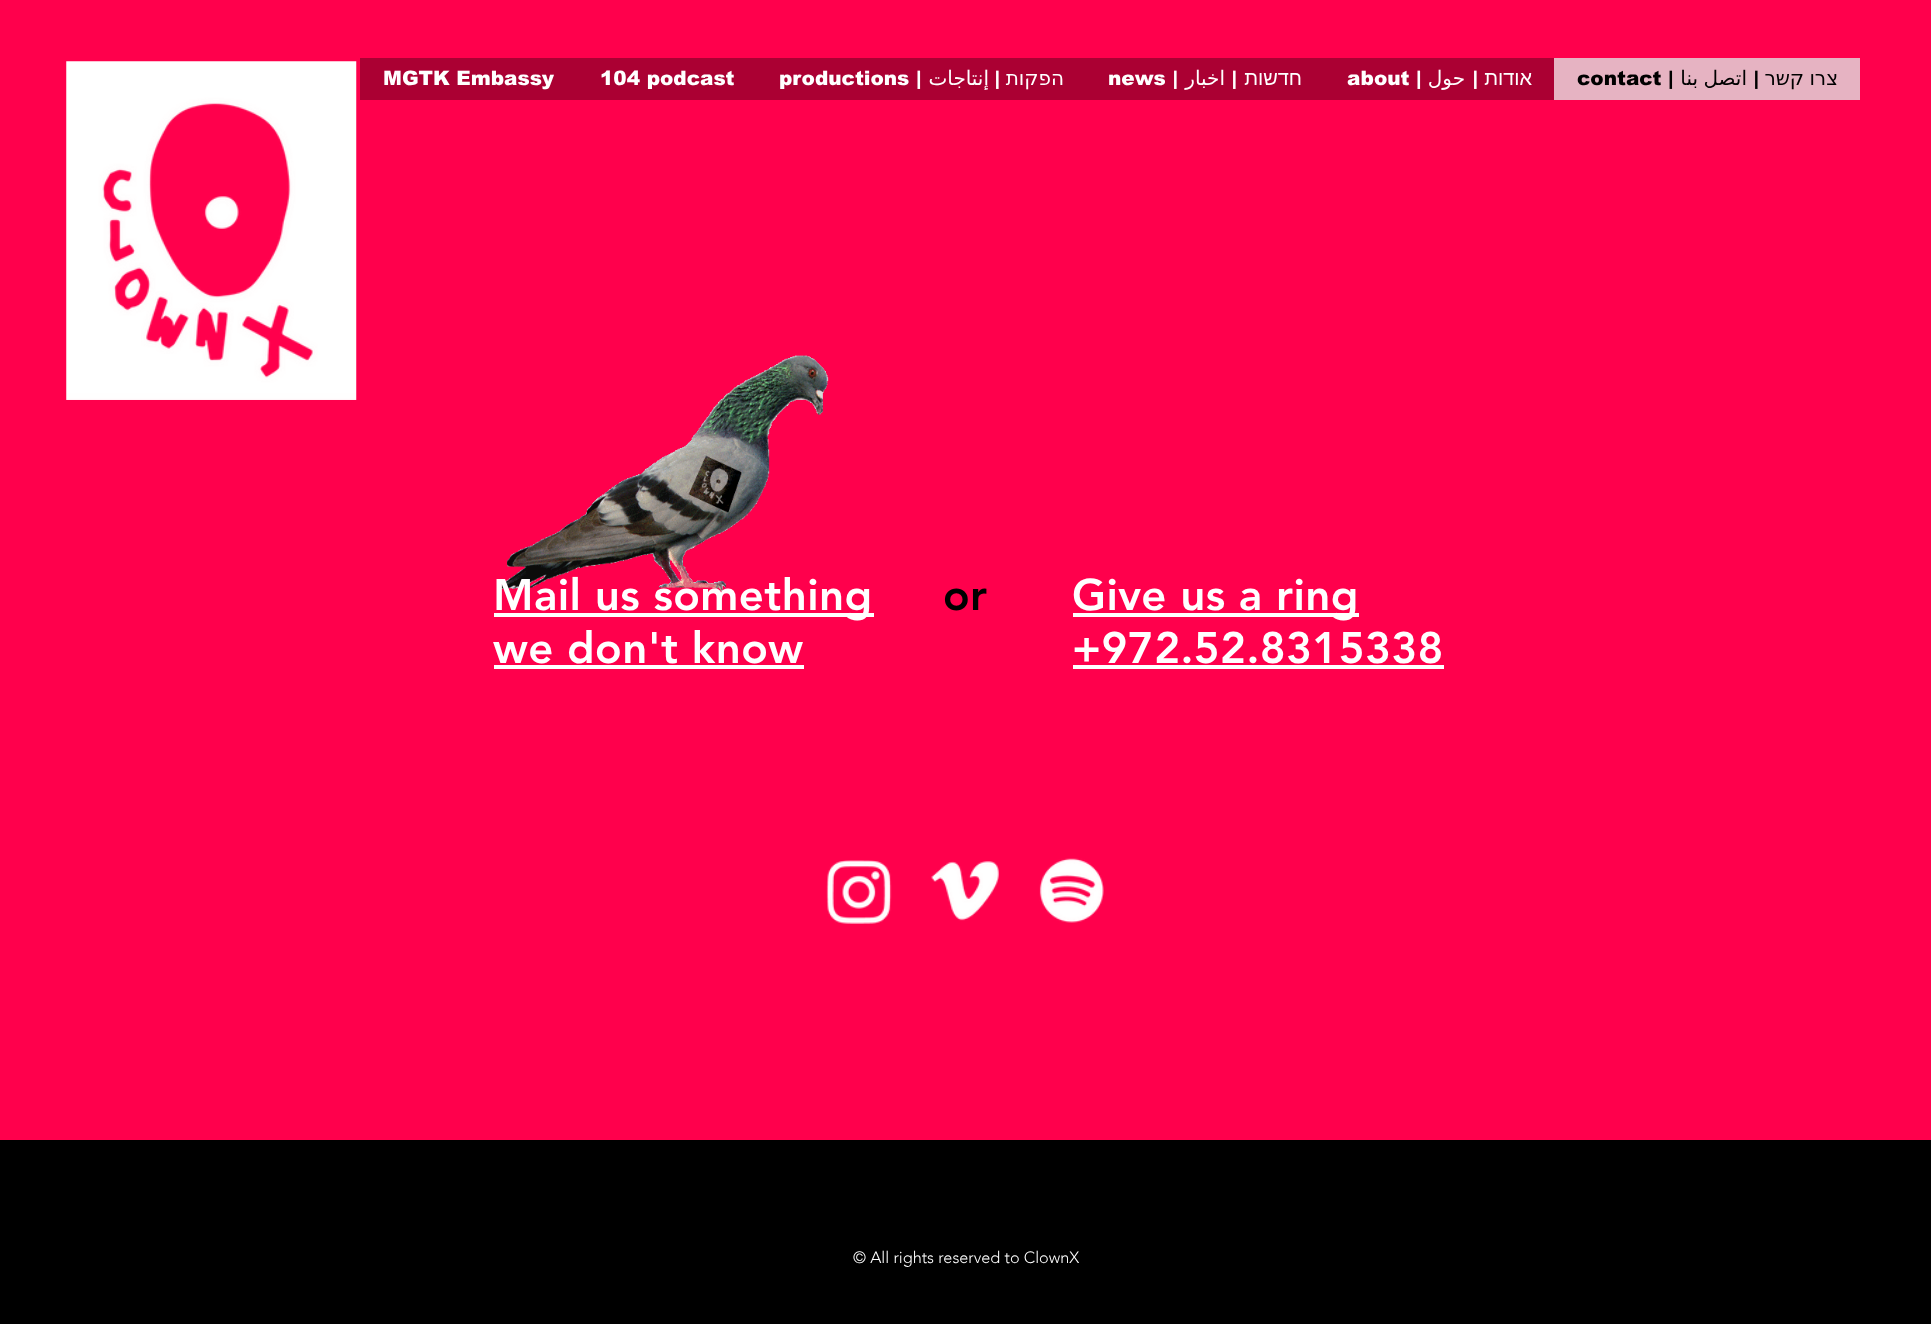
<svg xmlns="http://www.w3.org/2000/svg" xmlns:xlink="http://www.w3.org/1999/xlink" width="1931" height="1324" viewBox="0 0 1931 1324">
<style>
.cls-1{font:900 20px arial;fill:#ffffff}
.cls-2{font:20px DejaVu Sans;direction:rtl;fill:#ffffff}
.cls-3{font:900 20px arial;direction:rtl;fill:#ffffff}
.cls-4{font:20px Liberation Sans;direction:rtl;fill:#ffffff}
.cls-5{font:900 20px arial;fill:#000000}
.cls-6{font:20px DejaVu Sans;direction:rtl;fill:#000000}
.cls-7{font:900 20px arial;direction:rtl;fill:#000000}
.cls-8{font:900 43.75px 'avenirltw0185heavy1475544';letter-spacing:0.4px;fill:#ffffff}
.cls-9{font:900 43.75px 'avenirltw0185heavy1475544';letter-spacing:0.4px;fill:#000000}
.cls-10{font:300 16.25px 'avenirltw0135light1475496';fill:#ffffff}
</style>
<rect width="100%" height="100%" fill="#ff004c"/>
<rect fill="#ab0033" x="360" y="58" width="1194" height="42"/>
<rect fill="#e6b3c2" x="1554" y="58" width="306" height="42"/>
<image xlink:href="image0.png" x="66" y="61" width="291" height="339"/>
<image xlink:href="image1.png" x="500" y="355" width="329" height="237"/>
<rect fill="#ffffff" x="494" y="613" width="380" height="4"/>
<rect fill="#ffffff" x="494" y="665" width="310" height="4"/>
<rect fill="#ffffff" x="1073" y="613" width="286" height="4"/>
<rect fill="#ffffff" x="1073" y="665" width="371" height="4"/>
<image xlink:href="image2.png" x="826" y="860" width="66" height="64"/>
<image xlink:href="image3.png" x="931" y="861" width="68" height="60"/>
<image xlink:href="image4.png" x="1039" y="858" width="65" height="65"/>
<rect fill="#000000" x="0" y="1140" width="1931" height="184"/>
<text class="cls-1" x="383" y="85">MGTK Embassy</text>
<text class="cls-1" x="600" y="85">104 podcast</text>
<text class="cls-1" x="779" y="85">productions |</text>
<text class="cls-2" x="989" y="85">إنتاجات</text>
<text class="cls-3" x="1000" y="85">|</text>
<text class="cls-2" x="1064" y="85">הפקות</text>
<text class="cls-1" x="1108" y="85">news |</text>
<text class="cls-2" x="1225" y="85">اخبار</text>
<text class="cls-3" x="1237" y="85">|</text>
<text class="cls-4" x="1302" y="85">חדשות</text>
<text class="cls-1" x="1347" y="85">about |</text>
<text class="cls-2" x="1465" y="85">حول</text>
<text class="cls-3" x="1478" y="85">|</text>
<text class="cls-4" x="1532" y="85">אודות</text>
<text class="cls-5" x="1577" y="85">contact |</text>
<text class="cls-6" x="1747" y="85" word-spacing="-1">اتصل بنا</text>
<text class="cls-7" x="1759" y="85">|</text>
<text class="cls-6" x="1838" y="85" word-spacing="-1">צרו קשר</text>
<text class="cls-8"><tspan x="493" y="610">Mail us something</tspan><tspan x="493" y="663">we don't know</tspan></text>
<text class="cls-9" x="943" y="610">or</text>
<text class="cls-8"><tspan x="1072" y="610">Give us a ring</tspan><tspan x="1072" y="663">+972.52.8315338</tspan></text>
<text class="cls-10" x="853" y="1263">© All rights reserved to ClownX</text>
</svg>
